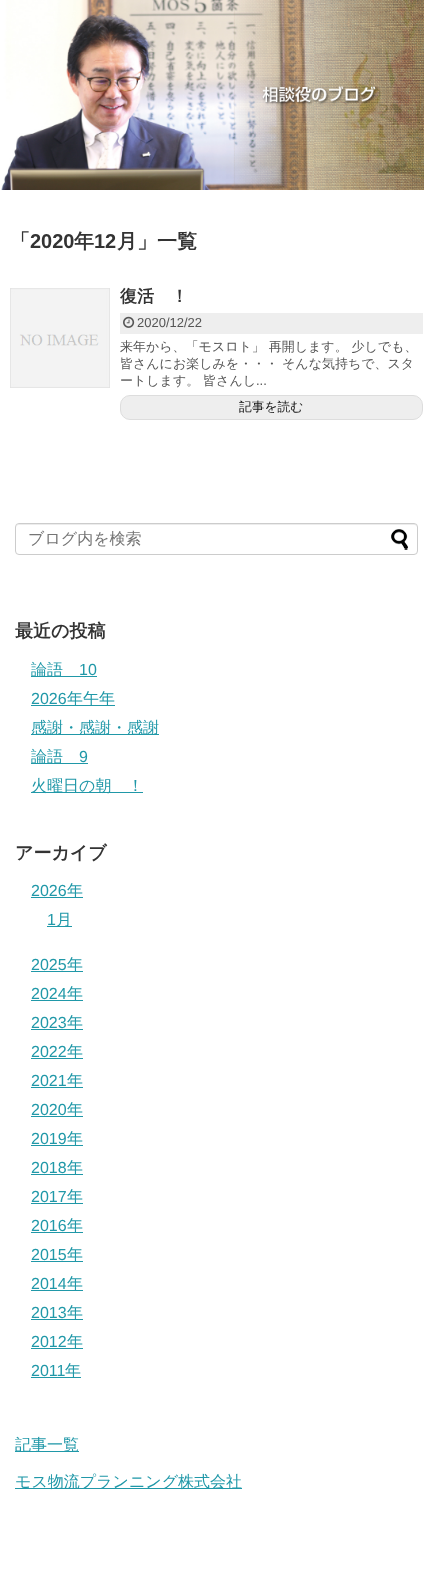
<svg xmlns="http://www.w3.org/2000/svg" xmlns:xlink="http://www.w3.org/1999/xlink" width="433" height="1570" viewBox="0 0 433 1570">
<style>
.cls-1{font:bold 20px WenQuanYi Zen Hei;fill:#333333}
.cls-2{font:bold 20px Liberation Sans;fill:#333333}
.cls-3{font:bold 17px WenQuanYi Zen Hei;fill:#333333}
.cls-4{font:13px Liberation Sans;fill:#555555}
.cls-5{font:500 13px WenQuanYi Zen Hei;fill:#555555}
.cls-6{font:500 12.75px WenQuanYi Zen Hei;fill:#111111}
.cls-7{font:500 16px WenQuanYi Zen Hei;fill:#757575}
.cls-8{font:bold 18px WenQuanYi Zen Hei;fill:#333333}
.cls-9{font:500 16px WenQuanYi Zen Hei;fill:#2098a8}
.cls-10{font:16px Liberation Sans;fill:#2098a8}
</style>
<rect width="100%" height="100%" fill="#ffffff"/>
<image xlink:href="image0.png" x="1" y="0" width="423" height="190"/>
<image xlink:href="image1.png" x="10" y="288" width="100" height="100"/>
<rect fill="#eeeeee" x="120" y="313" width="303" height="21"/>
<image xlink:href="image2.png" x="123" y="316" width="12" height="12"/>
<rect fill="#eeeeee" stroke="#dddddd" x="120.5" y="395.5" width="302" height="24" rx="9.5"/>
<path fill="#ececec" d="M19 525H414C416 525 417 526 417 528C417 526 416 524 414 524H19L17 525L16 528C16 526 17 525 19 525Z"/>
<rect fill="none" stroke="#cccccc" x="15.5" y="523.5" width="402" height="31" rx="3.5"/>
<image xlink:href="image3.png" x="391" y="529" width="17" height="21"/>
<rect fill="#2098a8" x="31" y="676" width="66" height="1"/>
<rect fill="#2098a8" x="31" y="705" width="84" height="1"/>
<rect fill="#2098a8" x="31" y="734" width="128" height="1"/>
<rect fill="#2098a8" x="31" y="763" width="57" height="1"/>
<rect fill="#2098a8" x="31" y="792" width="112" height="1"/>
<rect fill="#2098a8" x="31" y="897" width="52" height="1"/>
<rect fill="#2098a8" x="47" y="926" width="25" height="1"/>
<rect fill="#2098a8" x="31" y="971" width="52" height="1"/>
<rect fill="#2098a8" x="31" y="1000" width="52" height="1"/>
<rect fill="#2098a8" x="31" y="1029" width="52" height="1"/>
<rect fill="#2098a8" x="31" y="1058" width="52" height="1"/>
<rect fill="#2098a8" x="31" y="1087" width="52" height="1"/>
<rect fill="#2098a8" x="31" y="1116" width="52" height="1"/>
<rect fill="#2098a8" x="31" y="1145" width="52" height="1"/>
<rect fill="#2098a8" x="31" y="1174" width="52" height="1"/>
<rect fill="#2098a8" x="31" y="1203" width="52" height="1"/>
<rect fill="#2098a8" x="31" y="1232" width="52" height="1"/>
<rect fill="#2098a8" x="31" y="1261" width="52" height="1"/>
<rect fill="#2098a8" x="31" y="1290" width="52" height="1"/>
<rect fill="#2098a8" x="31" y="1319" width="52" height="1"/>
<rect fill="#2098a8" x="31" y="1348" width="52" height="1"/>
<rect fill="#2098a8" x="31" y="1377" width="50" height="1"/>
<rect fill="#2098a8" x="15" y="1451" width="64" height="1"/>
<rect fill="#2098a8" x="15" y="1488" width="227" height="1"/>
<text class="cls-1" x="10" y="248">「</text>
<text class="cls-2" x="30" y="248">2020</text>
<text class="cls-1" x="74" y="248">年</text>
<text class="cls-2" x="94" y="248">12</text>
<text class="cls-1" x="117" y="248">月」一覧</text>
<text class="cls-3" x="120" y="302">復活　！</text>
<text class="cls-4" x="137" y="327">2020/12/22</text>
<text class="cls-5"><tspan x="120" y="351">来年から、「モスロト」 再開します。 少しでも、</tspan><tspan x="120" y="368">皆さんにお楽しみを・・・ そんな気持ちで、スタ</tspan><tspan x="120" y="385">ートします。 皆さんし</tspan></text>
<text class="cls-4" x="256" y="385">...</text>
<text class="cls-6" x="239" y="411">記事を読む</text>
<text class="cls-7" x="28" y="544">ブログ内を検索</text>
<text class="cls-8" x="15" y="637">最近の投稿</text>
<text class="cls-9" x="31" y="675">論語</text>
<text class="cls-10" x="79" y="675">10</text>
<text class="cls-10" x="31" y="704">2026</text>
<text class="cls-9" x="67" y="704">年午年</text>
<text class="cls-9"><tspan x="31" y="733">感謝・感謝・感謝</tspan><tspan x="31" y="762">論語</tspan></text>
<text class="cls-10" x="79" y="762">9</text>
<text class="cls-9" x="31" y="791">火曜日の朝　！</text>
<text class="cls-8" x="15" y="859">アーカイブ</text>
<text class="cls-10" x="31" y="896">2026</text>
<text class="cls-9" x="67" y="896">年</text>
<text class="cls-10" x="47" y="925">1</text>
<text class="cls-9" x="56" y="925">月</text>
<text class="cls-10" x="31" y="970">2025</text>
<text class="cls-9" x="67" y="970">年</text>
<text class="cls-10" x="31" y="999">2024</text>
<text class="cls-9" x="67" y="999">年</text>
<text class="cls-10" x="31" y="1028">2023</text>
<text class="cls-9" x="67" y="1028">年</text>
<text class="cls-10" x="31" y="1057">2022</text>
<text class="cls-9" x="67" y="1057">年</text>
<text class="cls-10" x="31" y="1086">2021</text>
<text class="cls-9" x="67" y="1086">年</text>
<text class="cls-10" x="31" y="1115">2020</text>
<text class="cls-9" x="67" y="1115">年</text>
<text class="cls-10" x="31" y="1144">2019</text>
<text class="cls-9" x="67" y="1144">年</text>
<text class="cls-10" x="31" y="1173">2018</text>
<text class="cls-9" x="67" y="1173">年</text>
<text class="cls-10" x="31" y="1202">2017</text>
<text class="cls-9" x="67" y="1202">年</text>
<text class="cls-10" x="31" y="1231">2016</text>
<text class="cls-9" x="67" y="1231">年</text>
<text class="cls-10" x="31" y="1260">2015</text>
<text class="cls-9" x="67" y="1260">年</text>
<text class="cls-10" x="31" y="1289">2014</text>
<text class="cls-9" x="67" y="1289">年</text>
<text class="cls-10" x="31" y="1318">2013</text>
<text class="cls-9" x="67" y="1318">年</text>
<text class="cls-10" x="31" y="1347">2012</text>
<text class="cls-9" x="67" y="1347">年</text>
<text class="cls-10" x="31" y="1376">2011</text>
<text class="cls-9" x="65" y="1376">年</text>
<text class="cls-9" x="15" y="1450">記事一覧</text>
<text class="cls-9" x="15" y="1487">モス物流プランニング株式会社</text>
</svg>
